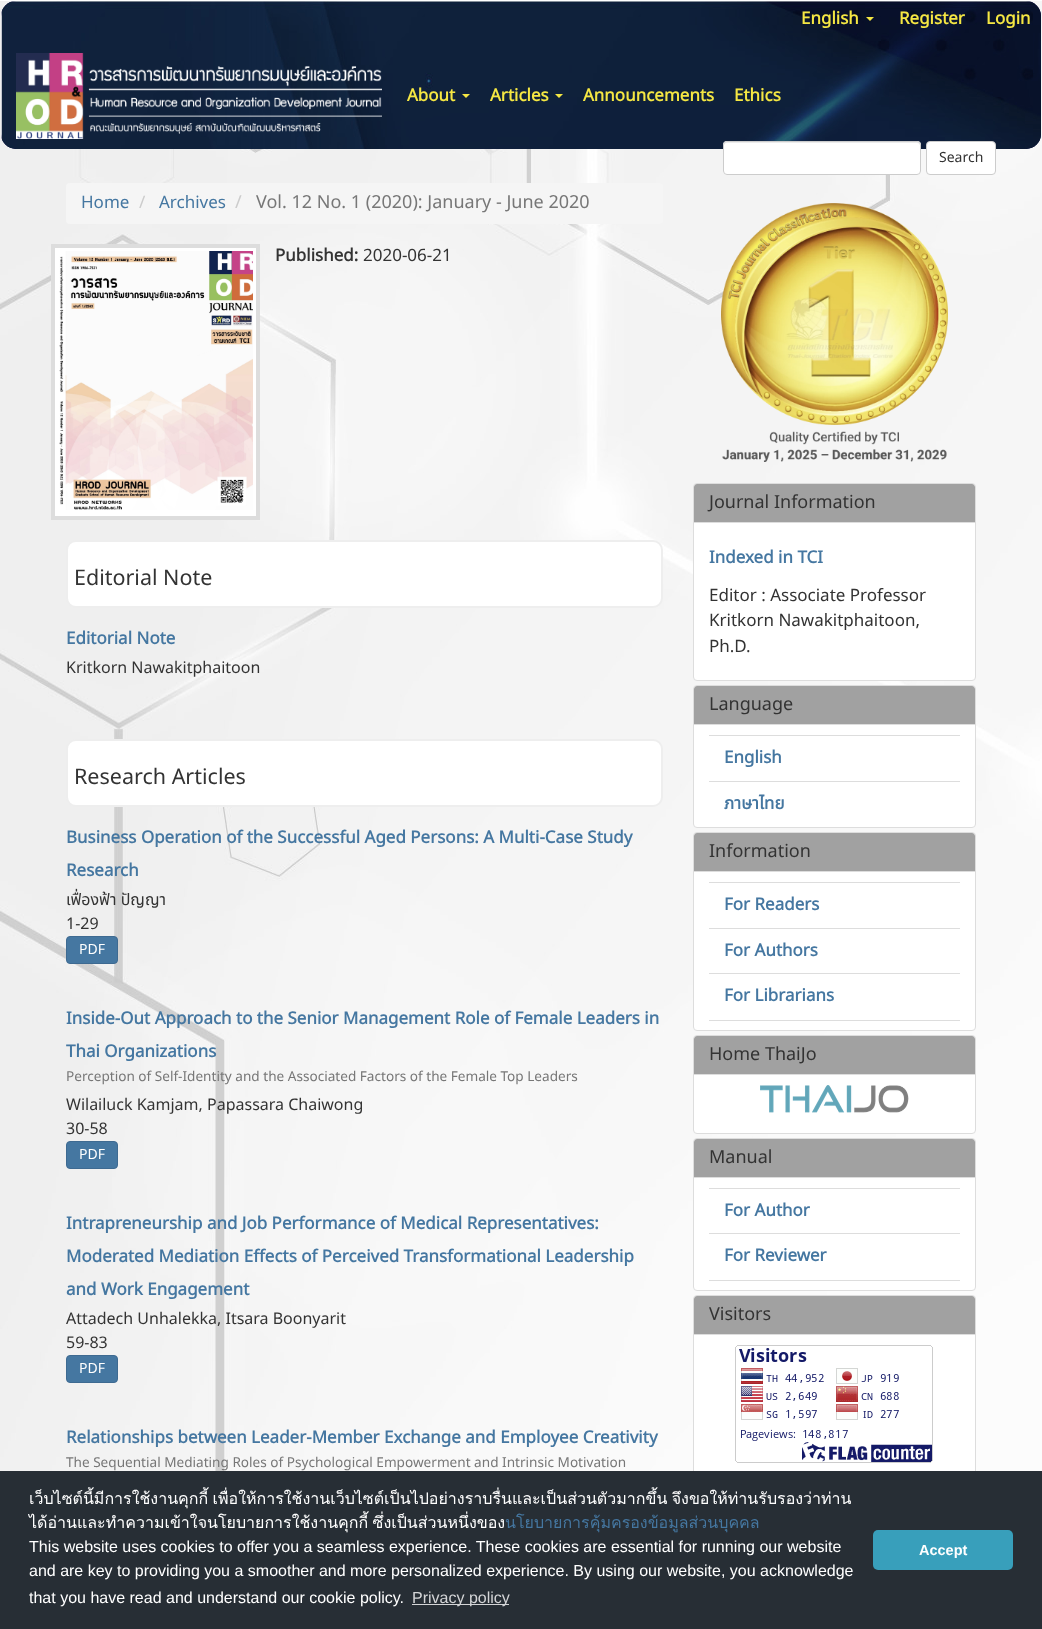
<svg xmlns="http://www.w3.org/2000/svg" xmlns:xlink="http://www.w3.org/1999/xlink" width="1042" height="1629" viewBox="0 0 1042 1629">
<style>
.cls-1{font:bold 17px Noto Sans Thai;fill:#f5e743}
.cls-2{font:14px Noto Sans Thai;fill:#333333}
.cls-3{font:17px Noto Sans Thai;fill:#4577a1}
.cls-4{font:17px Noto Sans Thai;fill:#cccccc}
.cls-5{font:18px Noto Sans Thai;fill:#cccccc}
.cls-6{font:18px Noto Sans Thai;fill:#777777}
.cls-7{font:bold 17px Noto Sans Thai;fill:#333333}
.cls-8{font:17px Noto Sans Thai;fill:#333333}
.cls-9{font:21.5px Noto Sans Thai;fill:#333333}
.cls-10{font:bold 17px Noto Sans Thai;fill:#4577a1}
.cls-11{font:16px Noto Sans Thai;fill:#333333}
.cls-12{font:14px Noto Sans Thai;fill:#ffffff}
.cls-13{font:13.6px Noto Sans Thai;fill:#777777}
.cls-14{font:18px Noto Sans Thai;fill:#333333}
.cls-15{font:16px Loma;fill:#ffffff}
.cls-16{font:16px Loma;fill:#4577a1}
.cls-17{font:16px Liberation Sans;fill:#ffffff}
.cls-18{font:16px Liberation Sans;fill:#d4d5d7}
.cls-19{font:bold 14.5px Liberation Sans;fill:#ffffff}
</style>
<defs>
<clipPath id="clip1"><rect x="66" y="817" width="597" height="147"/></clipPath>
</defs>
<rect width="100%" height="100%" fill="#ffffff"/>
<image xlink:href="image0.png" x="0" y="1" width="1042" height="1470"/>
<rect fill="#040246" x="1" y="1" width="1040" height="148" rx="15"/>
<image xlink:href="image1.png" x="1" y="1" width="1040" height="148"/>
<path fill="#f5e743" d="M866 17H874L870 21Z"/>
<image xlink:href="image2.png" x="16" y="53" width="366" height="86"/>
<path fill="#f5e743" d="M462 94H470L466 98Z"/>
<path fill="#f5e743" d="M555 94H563L559 98Z"/>
<rect fill="#ffffff" x="723" y="141" width="198" height="34" rx="4"/>
<path fill="#ececec" d="M727 143H917C919 143 920 144 920 146C920 144 919 142 917 142H727C725 142 724 144 724 146C724 144 725 143 727 143Z"/>
<rect fill="none" stroke="#cccccc" x="723.5" y="141.5" width="197" height="33" rx="3.5"/>
<rect fill="#ffffff" stroke="#cccccc" x="926.5" y="141.5" width="69" height="33" rx="3.5"/>
<rect fill="#f5f5f5" x="66" y="183" width="597" height="41" rx="4"/>
<rect fill="#ffffff" stroke="#dddddd" stroke-width="4" x="53" y="246" width="205" height="272"/>
<image xlink:href="image3.png" x="59" y="251" width="194" height="259"/>
<rect fill="#ffffff" stroke="#eeeeee" stroke-width="2" x="67" y="541" width="595" height="66" rx="9"/>
<rect fill="#ffffff" stroke="#eeeeee" stroke-width="2" x="67" y="740" width="595" height="66" rx="9"/>
<rect fill="#4577a1" stroke="#3e6a91" x="66.5" y="936.5" width="51" height="27" rx="3.5"/>
<rect fill="#4577a1" stroke="#3e6a91" x="66.5" y="1141.5" width="51" height="27" rx="3.5"/>
<rect fill="#4577a1" stroke="#3e6a91" x="66.5" y="1355.5" width="51" height="27" rx="3.5"/>
<image xlink:href="image4.png" x="721" y="203" width="227" height="259"/>
<rect fill="#ffffff" stroke="#dddddd" x="693.5" y="483.5" width="282" height="197" rx="3.5"/>
<path fill="#a1a1a1" d="M697 484H972C973.5 484 975 485.5 975 487V523H694V487C694 485.5 695.5 484 697 484Z"/>
<rect fill="#dddddd" x="694" y="522" width="281" height="1"/>
<rect fill="#ffffff" stroke="#dddddd" x="693.5" y="685.5" width="282" height="142" rx="3.5"/>
<path fill="#a1a1a1" d="M697 686H972C973.5 686 975 687.5 975 689V725H694V689C694 687.5 695.5 686 697 686Z"/>
<rect fill="#dddddd" x="694" y="724" width="281" height="1"/>
<rect fill="#dddddd" x="709" y="735" width="251" height="1"/>
<rect fill="#dddddd" x="709" y="781" width="251" height="1"/>
<rect fill="#ffffff" stroke="#dddddd" x="693.5" y="832.5" width="282" height="198" rx="3.5"/>
<path fill="#a1a1a1" d="M697 833H972C973.5 833 975 834.5 975 836V872H694V836C694 834.5 695.5 833 697 833Z"/>
<rect fill="#dddddd" x="694" y="871" width="281" height="1"/>
<rect fill="#dddddd" x="709" y="882" width="251" height="1"/>
<rect fill="#dddddd" x="709" y="928" width="251" height="1"/>
<rect fill="#dddddd" x="709" y="973" width="251" height="1"/>
<rect fill="#dddddd" x="709" y="1020" width="251" height="1"/>
<rect fill="#ffffff" stroke="#dddddd" x="693.5" y="1035.5" width="282" height="98" rx="3.5"/>
<path fill="#a1a1a1" d="M697 1036H972C973.5 1036 975 1037.5 975 1039V1075H694V1039C694 1037.5 695.5 1036 697 1036Z"/>
<rect fill="#dddddd" x="694" y="1074" width="281" height="1"/>
<image xlink:href="image5.png" x="760" y="1085" width="149" height="28"/>
<rect fill="#ffffff" stroke="#dddddd" x="693.5" y="1138.5" width="282" height="152" rx="3.5"/>
<path fill="#a1a1a1" d="M697 1139H972C973.5 1139 975 1140.5 975 1142V1178H694V1142C694 1140.5 695.5 1139 697 1139Z"/>
<rect fill="#dddddd" x="694" y="1177" width="281" height="1"/>
<rect fill="#dddddd" x="709" y="1188" width="251" height="1"/>
<rect fill="#dddddd" x="709" y="1233" width="251" height="1"/>
<rect fill="#dddddd" x="709" y="1280" width="251" height="1"/>
<rect fill="#ffffff" stroke="#dddddd" x="693.5" y="1295.5" width="282" height="239" rx="3.5"/>
<path fill="#a1a1a1" d="M697 1296H972C973.5 1296 975 1297.5 975 1299V1335H694V1299C694 1297.5 695.5 1296 697 1296Z"/>
<rect fill="#dddddd" x="694" y="1334" width="281" height="1"/>
<image xlink:href="image6.png" x="735" y="1345" width="198" height="118"/>
<rect fill="#272e35" x="0" y="1471" width="1042" height="158"/>
<rect fill="#d4d5d7" x="412" y="1604" width="97" height="1"/>
<rect fill="#389fbb" x="873" y="1530" width="140" height="40" rx="5"/>
<text class="cls-1" x="801" y="24">English</text>
<text class="cls-1" x="899" y="24">Register</text>
<text class="cls-1" x="986" y="24">Login</text>
<text class="cls-1" x="407" y="101">About</text>
<text class="cls-1" x="490" y="101">Articles</text>
<text class="cls-1" x="583" y="101">Announcements</text>
<text class="cls-1" x="734" y="101">Ethics</text>
<text class="cls-2" x="939" y="162">Search</text>
<text class="cls-3" x="81" y="208">Home</text>
<text class="cls-4" x="139" y="208">/</text>
<text class="cls-3" x="159" y="208">Archives</text>
<text class="cls-5" x="235" y="208">/</text>
<text class="cls-6" x="256" y="208">Vol. 12 No. 1 (2020): January - June 2020</text>
<text class="cls-7" x="275" y="261">Published:</text>
<text class="cls-8" x="363" y="261">2020-06-21</text>
<text class="cls-9" x="74" y="585">Editorial Note</text>
<text class="cls-10" x="66" y="644">Editorial Note</text>
<text class="cls-11" x="66" y="673">Kritkorn Nawakitphaitoon</text>
<text class="cls-9" x="74" y="784">Research Articles</text>
<text class="cls-10"><tspan x="66" y="843">Business Operation of the Successful Aged Persons: A Multi-Case Study</tspan><tspan x="66" y="876">Research</tspan></text>
<g clip-path="url(#clip1)">
<text class="cls-11" x="66" y="905">เฟื่องฟ้า ปัญญา</text>
</g>
<text class="cls-11" x="66" y="929">1-29</text>
<text class="cls-12" x="79" y="954">PDF</text>
<text class="cls-10"><tspan x="66" y="1024">Inside-Out Approach to the Senior Management Role of Female Leaders in</tspan><tspan x="66" y="1057">Thai Organizations</tspan></text>
<text class="cls-13" x="66" y="1081">Perception of Self-Identity and the Associated Factors of the Female Top Leaders</text>
<text class="cls-11"><tspan x="66" y="1110">Wilailuck Kamjam, Papassara Chaiwong</tspan><tspan x="66" y="1134">30-58</tspan></text>
<text class="cls-12" x="79" y="1159">PDF</text>
<text class="cls-10"><tspan x="66" y="1229">Intrapreneurship and Job Performance of Medical Representatives:</tspan><tspan x="66" y="1262">Moderated Mediation Effects of Perceived Transformational Leadership</tspan><tspan x="66" y="1295">and Work Engagement</tspan></text>
<text class="cls-11"><tspan x="66" y="1324">Attadech Unhalekka, Itsara Boonyarit</tspan><tspan x="66" y="1348">59-83</tspan></text>
<text class="cls-12" x="79" y="1373">PDF</text>
<text class="cls-10" x="66" y="1443">Relationships between Leader-Member Exchange and Employee Creativity</text>
<text class="cls-13" x="66" y="1467">The Sequential Mediating Roles of Psychological Empowerment and Intrinsic Motivation</text>
<text class="cls-14" x="709" y="508">Journal Information</text>
<text class="cls-10" x="709" y="563">Indexed in TCI</text>
<text class="cls-8"><tspan x="709" y="601">Editor : Associate Professor</tspan><tspan x="709" y="626">Kritkorn Nawakitphaitoon,</tspan><tspan x="709" y="652">Ph.D.</tspan></text>
<text class="cls-14" x="709" y="710">Language</text>
<text class="cls-10" x="724" y="763">English</text>
<text class="cls-10" x="724" y="809">ภาษาไทย</text>
<text class="cls-14" x="709" y="857">Information</text>
<text class="cls-10" x="724" y="910">For Readers</text>
<text class="cls-10" x="724" y="956">For Authors</text>
<text class="cls-10" x="724" y="1001">For Librarians</text>
<text class="cls-14" x="709" y="1060">Home ThaiJo</text>
<text class="cls-14" x="709" y="1163">Manual</text>
<text class="cls-10" x="724" y="1216">For Author</text>
<text class="cls-10" x="724" y="1261">For Reviewer</text>
<text class="cls-14" x="709" y="1320">Visitors</text>
<text class="cls-15"><tspan x="29" y="1504" word-spacing="-1">เว็บไซต์นี้มีการใช้งานคุกกี้ เพื่อให้การใช้งานเว็บไซต์เป็นไปอย่างราบรื่นและเป็นส่วนตัวมากขึ้น จึงขอให้ท่านรับรองว่าท่าน</tspan><tspan x="29" y="1528" word-spacing="-1">ได้อ่านและทำความเข้าใจนโยบายการใช้งานคุกกี้ ซึ่งเป็นส่วนหนึ่งของ</tspan></text>
<text class="cls-16" x="505" y="1528">นโยบายการคุ้มครองข้อมูลส่วนบุคคล</text>
<text class="cls-17"><tspan x="29" y="1552">This website uses cookies to offer you a seamless experience. These cookies are essential for running our website</tspan><tspan x="29" y="1576">and are key to providing you a smoother and more personalized experience. By using our website, you acknowledge</tspan><tspan x="29" y="1603">that you have read and understand our cookie policy.</tspan></text>
<text class="cls-18" x="412" y="1603">Privacy policy</text>
<text class="cls-19" x="919" y="1555">Accept</text>
</svg>
